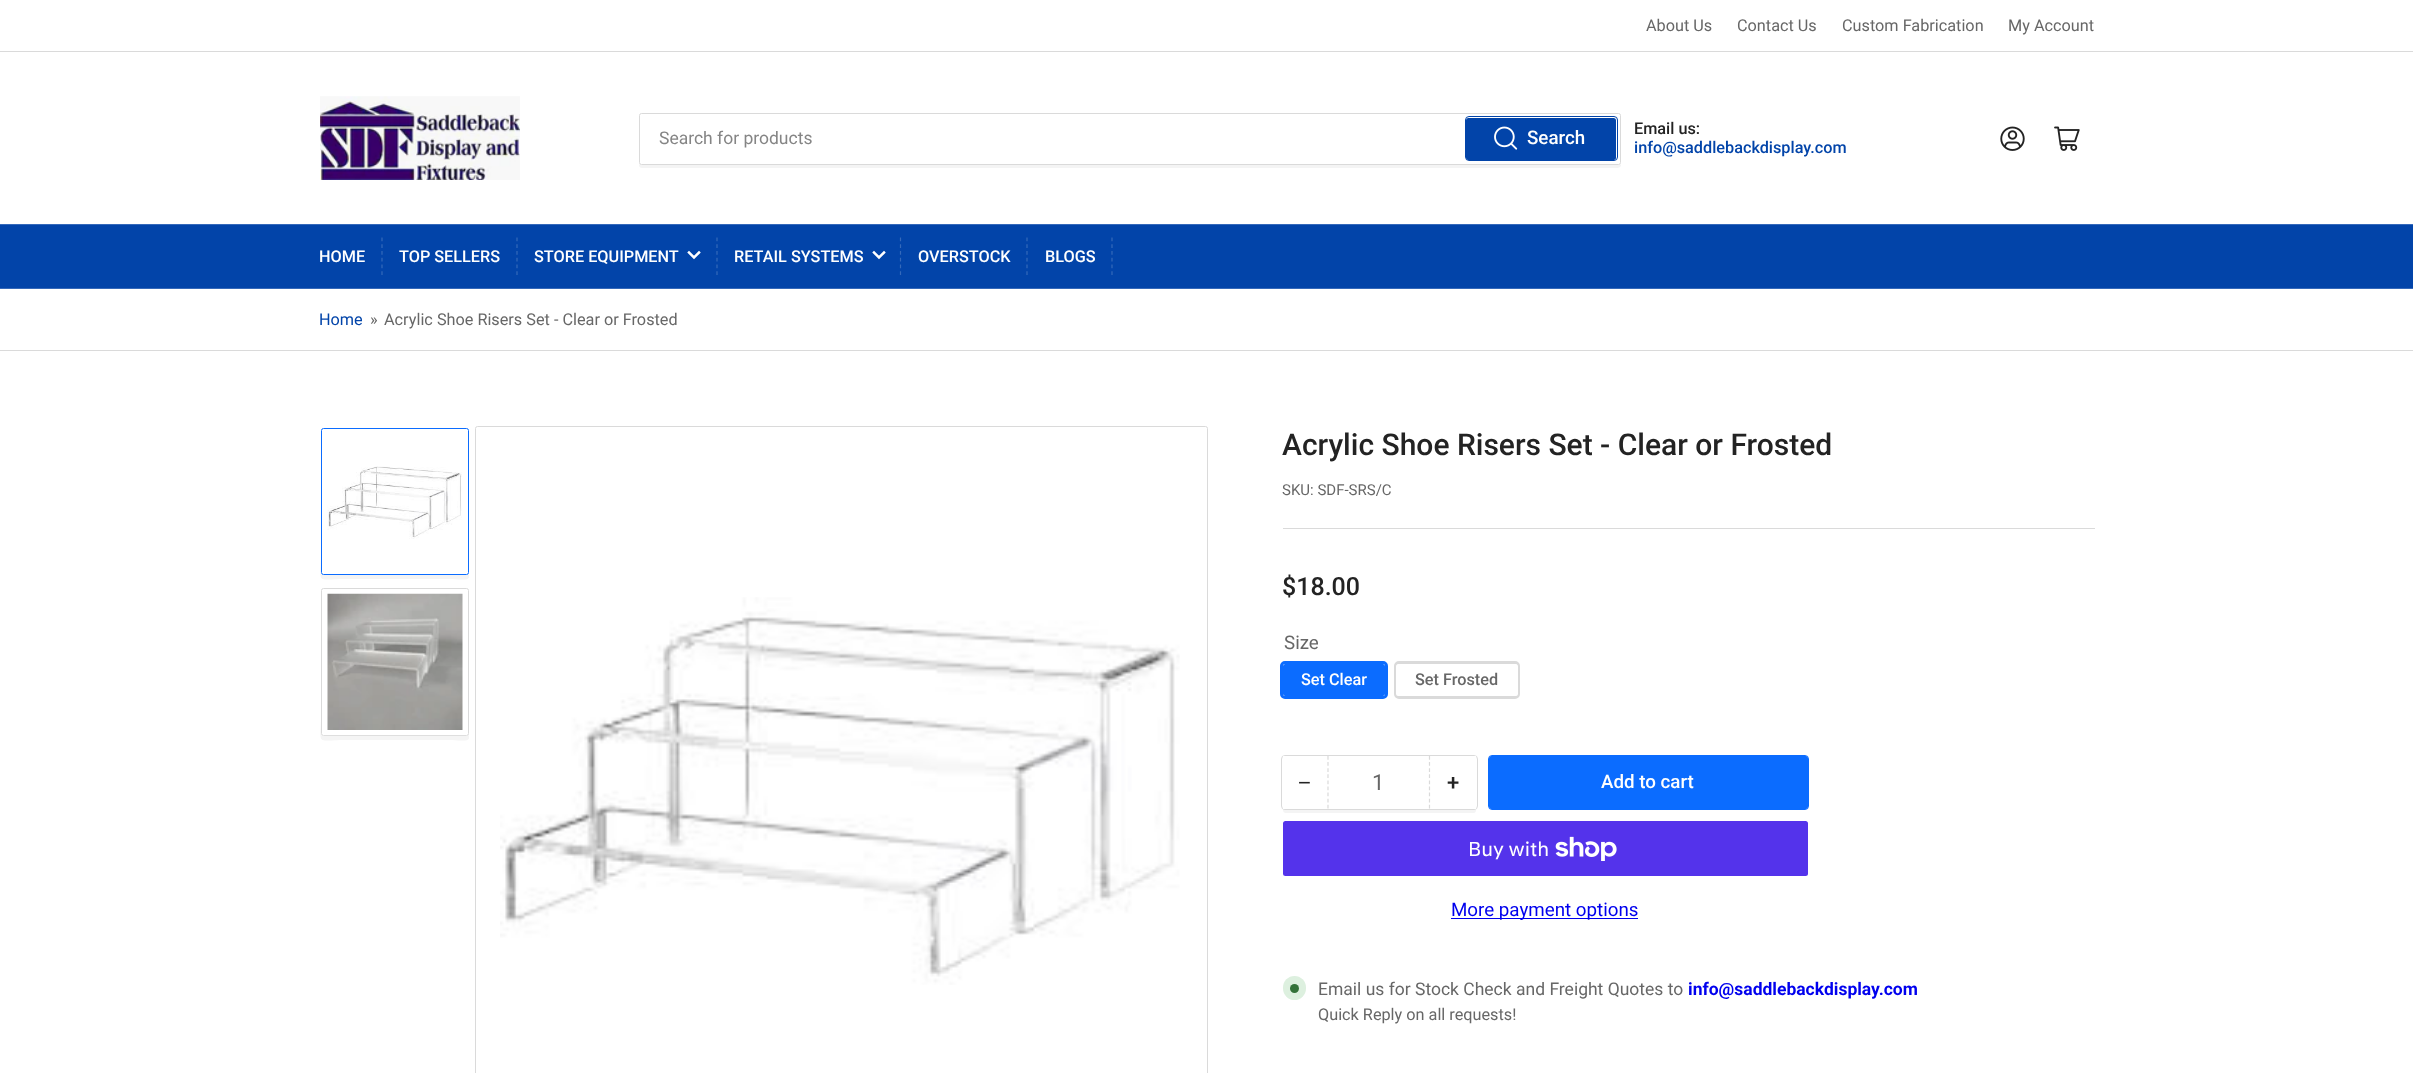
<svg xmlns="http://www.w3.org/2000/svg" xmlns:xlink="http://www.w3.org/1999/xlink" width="2413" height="1073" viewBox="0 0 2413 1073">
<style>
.cls-1{font:16.25px Roboto;fill:#676767}
.cls-2{font:17.5px Roboto;fill:#858585}
.cls-3{font:500 18.75px Roboto;fill:#ffffff}
.cls-4{font:500 16.25px Roboto;fill:#232323}
.cls-5{font:500 16.25px Roboto;fill:#0244a9}
.cls-6{font:500 16.25px Roboto;fill:#ffffff}
.cls-7{font:16.25px Roboto;fill:#0244a9}
.cls-8{font:500 30px Roboto;fill:#232323}
.cls-9{font:15px Roboto;fill:#676767}
.cls-10{font:500 25px Roboto;fill:#232323}
.cls-11{font:18.75px Roboto;fill:#676767}
.cls-12{font:500 16.25px Roboto;fill:#676767}
.cls-13{font:22px Liberation Sans;fill:#232323}
.cls-14{font:22px Roboto;fill:#676767}
.cls-15{font:500 22px Roboto;fill:#232323}
.cls-16{font:20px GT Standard;fill:#ffffff}
.cls-17{font:18.75px Roboto;fill:#0000ee}
.cls-18{font:17.5px Roboto;fill:#676767}
.cls-19{font:bold 17.5px Roboto;fill:#0000ee}
</style>
<defs>
<clipPath id="clip1"><rect x="320" y="426" width="149" height="349"/></clipPath>
<linearGradient id="g1" gradientUnits="userSpaceOnUse" x1="394" y1="775" x2="394" y2="731"><stop offset="0" stop-color="#ffffff"/><stop offset="1" stop-color="#ffffff" stop-opacity="0"/></linearGradient>
</defs>
<rect width="100%" height="100%" fill="#ffffff"/>
<rect fill="#dadada" x="0" y="51" width="2413" height="1"/>
<image xlink:href="image0.png" x="320" y="96" width="200" height="84"/>
<path fill="#f4f4f4" d="M639 164C639 165 639 168 642 168H1618L1620 167L1621 166V164C1621 164 1620 165 1619 165H641Z"/>
<rect fill="none" stroke="#dadada" x="639.5" y="113.5" width="981" height="51" rx="2"/>
<rect fill="none" stroke="#0244a9" x="1465.5" y="116.5" width="152" height="44" rx="3.5"/>
<rect fill="#0244a9" x="1466" y="118" width="150" height="42" rx="2.5"/>
<image xlink:href="image1.png" x="1494" y="126" width="24" height="24"/>
<image xlink:href="image2.png" x="2000" y="126" width="25" height="25"/>
<image xlink:href="image3.png" x="2054" y="126" width="26" height="25"/>
<rect fill="#0244a9" x="0" y="225" width="2413" height="63"/>
<rect fill="#3569ba" x="0" y="224" width="2413" height="1"/>
<rect fill="#3569ba" x="0" y="288" width="2413" height="1"/>
<path fill="none" stroke="#3569ba" stroke-width="1.2" stroke-dasharray="3.75 3" d="M382 237.5V275"/>
<path fill="none" stroke="#3569ba" stroke-width="1.2" stroke-dasharray="3.75 3" d="M517 237.5V275"/>
<path fill="none" stroke="#ffffff" stroke-width="2.5" stroke-linecap="square" d="M699 252.5L694 257.5L689 252.5"/>
<path fill="none" stroke="#3569ba" stroke-width="1.2" stroke-dasharray="3.75 3" d="M717 237.5V275"/>
<path fill="none" stroke="#ffffff" stroke-width="2.5" stroke-linecap="square" d="M884 252.5L879 257.5L874 252.5"/>
<path fill="none" stroke="#3569ba" stroke-width="1.2" stroke-dasharray="3.75 3" d="M900.5 237.5V275"/>
<path fill="none" stroke="#3569ba" stroke-width="1.2" stroke-dasharray="3.75 3" d="M1027 237.5V275"/>
<path fill="none" stroke="#3569ba" stroke-width="1.2" stroke-dasharray="3.75 3" d="M1112 237.5V275"/>
<rect fill="#dadada" x="0" y="350" width="2413" height="1"/>
<g clip-path="url(#clip1)">
<path fill="#f4f4f4" d="M321 432V553C321 586 314 579 347 579H443C476 579 469 586 469 553V432V572C469 574 468 575 466 575H324C322 575 321 574 321 572Z"/>
</g>
<rect fill="none" stroke="#0b6cff" x="321.5" y="428.5" width="147" height="146" rx="2"/>
<image xlink:href="image4.png" x="327" y="466" width="135" height="73"/>
<g clip-path="url(#clip1)">
<path fill="#f4f4f4" d="M321 592V714C321 747 314 740 347 740H443C476 740 469 747 469 714V592V734C469 735 468 736 466 736H324C322 736 321 735 321 734Z"/>
</g>
<rect fill="none" stroke="#dadada" x="321.5" y="588.5" width="147" height="147" rx="2"/>
<image xlink:href="image5.png" x="327" y="593" width="136" height="137"/>
<rect fill="url(#g1)" x="322" y="735" width="146" height="1"/>
<rect fill="none" stroke="#dadada" x="475.5" y="426.5" width="732" height="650" rx="2"/>
<image xlink:href="image6.png" x="500" y="597" width="680" height="388"/>
<rect fill="#dadada" x="1283" y="528" width="812" height="1"/>
<rect fill="none" stroke="#0b6cff" stroke-width="3" x="1281.5" y="662.5" width="105" height="35" rx="3.5"/>
<rect fill="#0b6cff" x="1283" y="664" width="102" height="32" rx="2.5"/>
<rect fill="none" stroke="#dadada" stroke-width="3" x="1395.5" y="662.5" width="123" height="35" rx="3.5"/>
<rect fill="#ffffff" x="1396" y="664" width="122" height="32" rx="2.5"/>
<path fill="#f4f4f4" d="M1283 808V810C1283 812 1284 813 1286 813H1474C1475 813 1476 812 1476 810V807C1476 808 1475 809 1474 809H1285C1284 809 1283 808 1283 808Z"/>
<rect fill="none" stroke="#dadada" x="1281.5" y="755.5" width="196" height="54" rx="3.5"/>
<rect fill="#ffffff" x="1283" y="756" width="2" height="53"/>
<path fill="none" stroke="#dadada" stroke-width="1.2" stroke-dasharray="3.75 2.35" d="M1429.5 756V809"/>
<path fill="none" stroke="#dadada" stroke-width="1.2" stroke-dasharray="3.75 2.35" d="M1328 756V809"/>
<rect fill="#ffffff" x="1474" y="756" width="2" height="53"/>
<rect fill="none" stroke="#0b6cff" x="1488.5" y="755.5" width="320" height="54" rx="3.5"/>
<rect fill="#0b6cff" x="1489" y="756" width="319" height="53" rx="2.5"/>
<rect fill="#5433eb" x="1283" y="821" width="525" height="55" rx="2.5"/>
<image xlink:href="image7.png" x="1555" y="836" width="62" height="25"/>
<rect fill="#0000ee" x="1451" y="918" width="187" height="1"/>
<rect fill="#ddf0df" x="1283" y="976" width="23" height="24" rx="11.5"/>
<circle fill="#337239" cx="1294.5" cy="988.5" r="4.5"/>
<text class="cls-1" x="1646" y="31">About Us</text>
<text class="cls-1" x="1737" y="31">Contact Us</text>
<text class="cls-1" x="1842" y="31">Custom Fabrication</text>
<text class="cls-1" x="2008" y="31">My Account</text>
<text class="cls-2" x="659" y="144">Search for products</text>
<text class="cls-3" x="1527" y="144">Search</text>
<text class="cls-4" x="1634" y="134">Email us:</text>
<text class="cls-5" x="1634" y="153">info@saddlebackdisplay.com</text>
<text class="cls-6" x="319" y="262">HOME</text>
<text class="cls-6" x="399" y="262">TOP SELLERS</text>
<text class="cls-6" x="534" y="262">STORE EQUIPMENT</text>
<text class="cls-6" x="734" y="262">RETAIL SYSTEMS</text>
<text class="cls-6" x="918" y="262">OVERSTOCK</text>
<text class="cls-6" x="1045" y="262">BLOGS</text>
<text class="cls-7" x="319" y="325">Home</text>
<text class="cls-1" x="370" y="325">»</text>
<text class="cls-1" x="384" y="325">Acrylic Shoe Risers Set - Clear or Frosted</text>
<text class="cls-8" x="1282" y="455">Acrylic Shoe Risers Set - Clear or Frosted</text>
<text class="cls-9" x="1282" y="495">SKU: SDF-SRS/C</text>
<text class="cls-10" x="1282" y="595">$18.00</text>
<text class="cls-11" x="1284" y="649">Size</text>
<text class="cls-6" x="1301" y="685">Set Clear</text>
<text class="cls-12" x="1415" y="685">Set Frosted</text>
<text class="cls-13" x="1298" y="790">−</text>
<text class="cls-14" x="1372" y="790">1</text>
<text class="cls-15" x="1447" y="790">+</text>
<text class="cls-3" x="1601" y="788">Add to cart</text>
<text class="cls-16" x="1468" y="856">Buy with</text>
<text class="cls-17" x="1451" y="916">More payment options</text>
<text class="cls-18" x="1318" y="995">Email us for Stock Check and Freight Quotes to</text>
<text class="cls-19" x="1688" y="995">info@saddlebackdisplay.com</text>
<text class="cls-1" x="1318" y="1020">Quick Reply on all requests!</text>
</svg>
